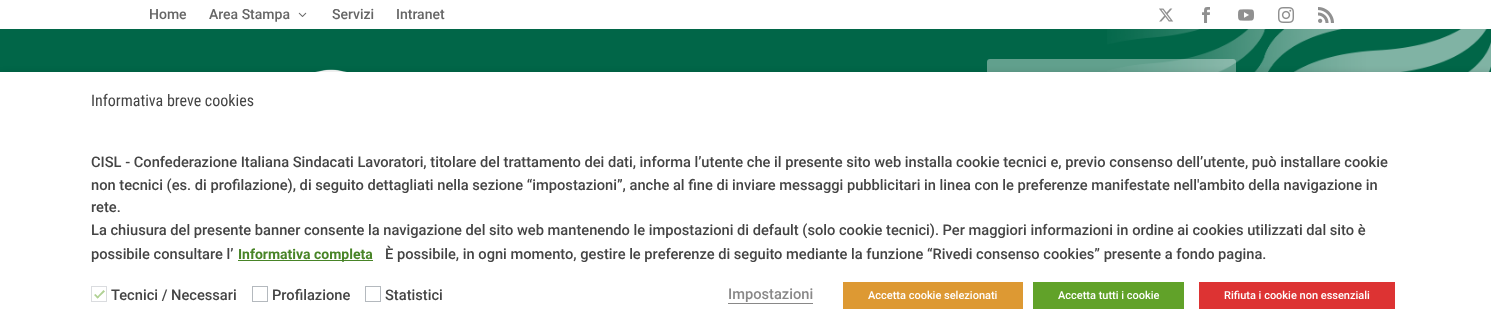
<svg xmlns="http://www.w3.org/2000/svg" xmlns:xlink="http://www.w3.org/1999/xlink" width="1491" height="325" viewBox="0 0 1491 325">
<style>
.cls-1{font:500 14px Roboto;fill:#666666}
.cls-2{font:16px Roboto Condensed;fill:#444444}
.cls-3{font:500 14.67px Roboto;fill:#444444}
.cls-4{font:bold 14px Roboto;fill:#488427}
.cls-5{font:500 14.67px Roboto;fill:#898888}
.cls-6{font:500 11px Roboto;fill:#ffffff}
</style>
<rect width="100%" height="100%" fill="#ffffff"/>
<image xlink:href="image0.png" x="298" y="12" width="9" height="5"/>
<image xlink:href="image1.png" x="1159" y="8" width="15" height="14"/>
<image xlink:href="image2.png" x="1202" y="7" width="8" height="16"/>
<image xlink:href="image3.png" x="1238" y="9" width="16" height="12"/>
<image xlink:href="image4.png" x="1278" y="7" width="16" height="16"/>
<image xlink:href="image5.png" x="1318" y="7" width="16" height="16"/>
<rect fill="#016648" x="0" y="29" width="1491" height="43"/>
<image xlink:href="image6.png" x="1107" y="29" width="384" height="43"/>
<image xlink:href="image7.png" x="315" y="69" width="32" height="3"/>
<path fill="#ffffff" fill-opacity="0.38" d="M990 59C988 59 987 60 987 62V93C987 94 988 95 990 95H1233C1235 95 1236 94 1236 93V62C1236 60 1235 59 1233 59Z"/>
<rect fill="#000000" fill-opacity="0.5" filter="blur(5px)" x="0" y="77" width="1491" height="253"/>
<rect fill="#ffffff" x="0" y="72" width="1491" height="253"/>
<rect fill="#488427" x="238" y="260" width="135" height="1"/>
<rect fill="none" stroke="#dadcdf" x="91.5" y="286.5" width="15" height="15"/>
<path fill="#b0d194" d="M103.5 290L105 291.5L97.5 298.5L96.5 297.5Z"/>
<path fill="#b0d194" d="M95.5 294L99 297.5L97.5 298.5L94 295Z"/>
<rect fill="none" stroke="#b4b9be" x="252.5" y="286.5" width="15" height="15"/>
<rect fill="none" stroke="#b4b9be" x="365.5" y="286.5" width="15" height="15"/>
<rect fill="#898888" x="728" y="303" width="85" height="1"/>
<rect fill="#dd9933" x="843" y="282" width="180" height="27"/>
<rect fill="#61a229" x="1033" y="282" width="151" height="27"/>
<rect fill="#dd3333" x="1199" y="282" width="196" height="27"/>
<text class="cls-1" x="149" y="19">Home</text>
<text class="cls-1" x="209" y="19">Area Stampa</text>
<text class="cls-1" x="332" y="19">Servizi</text>
<text class="cls-1" x="396" y="19">Intranet</text>
<text class="cls-2" x="91" y="106">Informativa breve cookies</text>
<text class="cls-3"><tspan x="91" y="167">CISL - Confederazione Italiana Sindacati Lavoratori, titolare del trattamento dei dati, informa l’utente che il presente sito web installa cookie tecnici e, previo consenso dell’utente, può installare cookie</tspan><tspan x="91" y="190">non tecnici (es. di profilazione), di seguito dettagliati nella sezione “impostazioni”, anche al fine di inviare messaggi pubblicitari in linea con le preferenze manifestate nell'ambito della navigazione in</tspan><tspan x="91" y="212">rete.</tspan><tspan x="91" y="235">La chiusura del presente banner consente la navigazione del sito web mantenendo le impostazioni di default (solo cookie tecnici). Per maggiori informazioni in ordine ai cookies utilizzati dal sito è</tspan><tspan x="91" y="259">possibile consultare l’</tspan></text>
<text class="cls-4" x="238" y="259">Informativa completa</text>
<text class="cls-3" x="385" y="259">È possibile, in ogni momento, gestire le preferenze di seguito mediante la funzione “Rivedi consenso cookies” presente a fondo pagina.</text>
<text class="cls-3" x="111" y="300">Tecnici / Necessari</text>
<text class="cls-3" x="272" y="300">Profilazione</text>
<text class="cls-3" x="385" y="300">Statistici</text>
<text class="cls-5" x="728" y="299">Impostazioni</text>
<text class="cls-6" x="868" y="299">Accetta cookie selezionati</text>
<text class="cls-6" x="1058" y="299">Accetta tutti i cookie</text>
<text class="cls-6" x="1224" y="299">Rifiuta i cookie non essenziali</text>
</svg>
